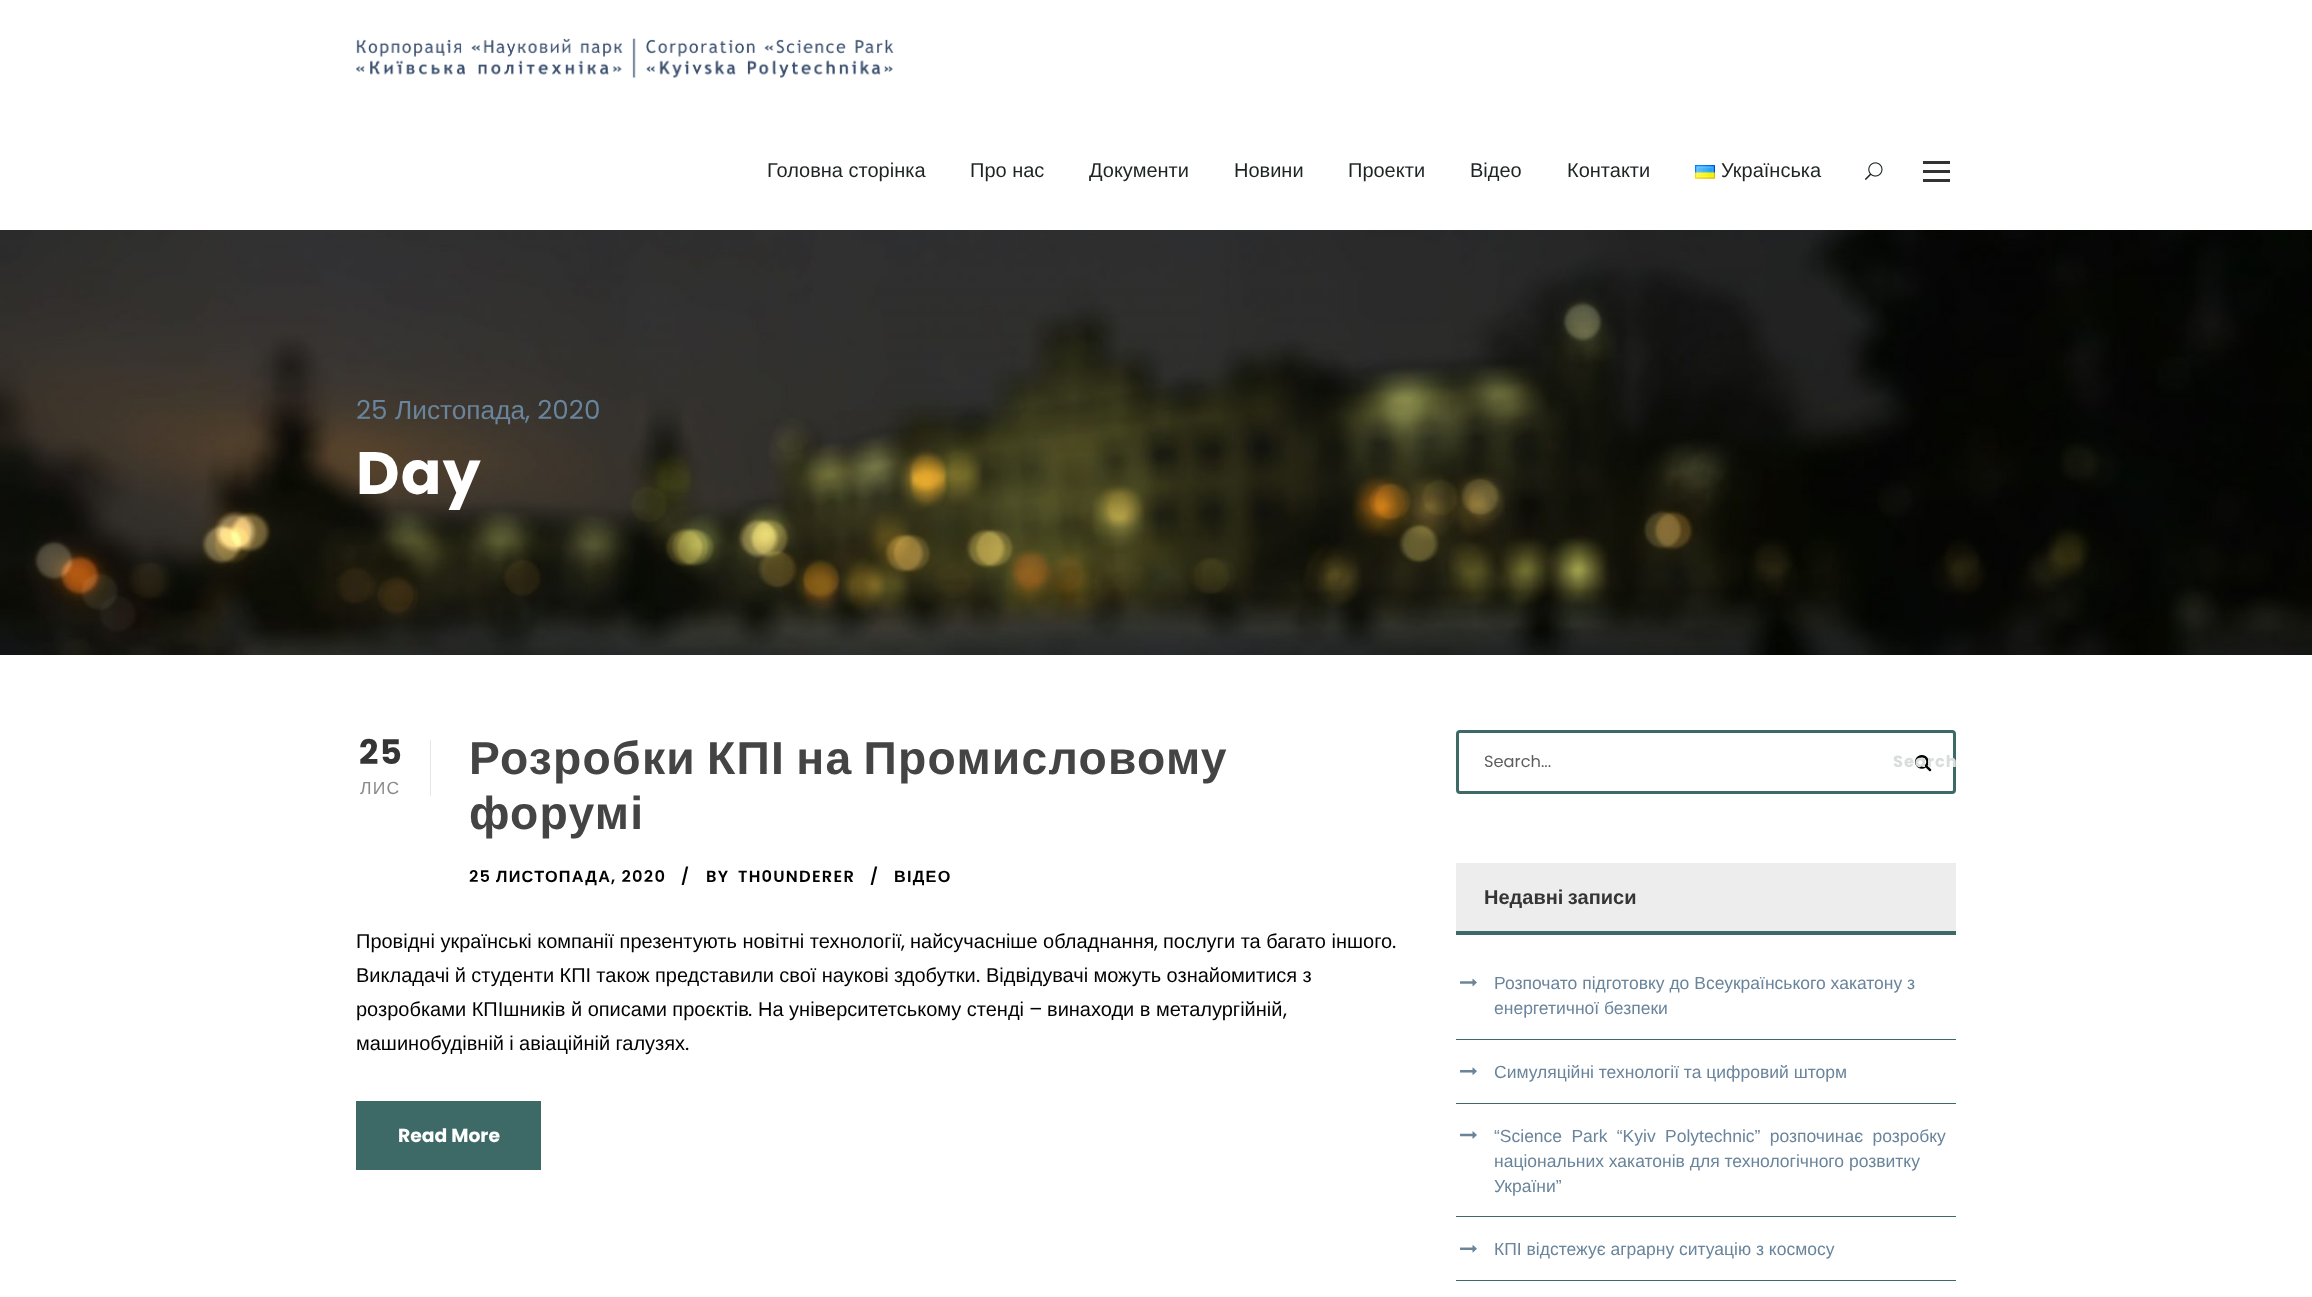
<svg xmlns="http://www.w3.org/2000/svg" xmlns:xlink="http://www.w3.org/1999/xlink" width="2312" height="1297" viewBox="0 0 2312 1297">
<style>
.cls-1{font:20px Liberation Sans;fill:#1d2424}
.cls-2{font:26.25px Poppins;fill:#69849b}
.cls-3{font:26.25px Liberation Sans;fill:#69849b}
.cls-4{font:bold 60px Poppins;letter-spacing:1.25px;fill:#ffffff}
.cls-5{font:bold 34px Poppins;letter-spacing:1.25px;fill:#353535}
.cls-6{font:17.5px Liberation Sans;letter-spacing:1.25px;fill:#8a8a8a}
.cls-7{font:bold 46.25px Liberation Sans;letter-spacing:1.25px;fill:#444444}
.cls-8{font:600 16.25px Poppins;letter-spacing:1.25px;fill:#020202}
.cls-9{font:bold 16.25px Liberation Sans;letter-spacing:1.25px;fill:#020202}
.cls-10{font:20px Liberation Sans;fill:#020202}
.cls-11{font:20px Poppins;fill:#020202}
.cls-12{font:bold 18.75px Poppins;fill:#ffffff}
.cls-13{font:16.25px Poppins;fill:#5e5e5e}
.cls-14{font:bold 16.25px Poppins;letter-spacing:1px;fill:#dbdddd}
.cls-15{font:bold 20px Liberation Sans;fill:#353535}
.cls-16{font:17.5px Liberation Sans;fill:#69849b}
</style>
<rect width="100%" height="100%" fill="#ffffff"/>
<image xlink:href="image0.png" x="356" y="38" width="538" height="40"/>
<image xlink:href="image1.png" x="1695" y="165" width="20" height="14"/>
<image xlink:href="image2.png" x="1865" y="162" width="18" height="18"/>
<rect fill="#333333" x="1923" y="161" width="27" height="3"/>
<rect fill="#333333" x="1923" y="170" width="27" height="3"/>
<rect fill="#333333" x="1923" y="179" width="27" height="3"/>
<image xlink:href="image3.png" x="0" y="230" width="2312" height="425"/>
<rect fill="#e6e6e6" x="430" y="740" width="1" height="56"/>
<rect fill="#3d6a66" x="356" y="1101" width="185" height="69"/>
<rect fill="none" stroke="#3d6a66" stroke-width="3" x="1457.5" y="731.5" width="497" height="61" rx="2.5"/>
<image xlink:href="image4.png" x="1915" y="755" width="17" height="17"/>
<rect fill="#ededed" x="1456" y="863" width="500" height="68"/>
<rect fill="#3d6a66" x="1456" y="931" width="500" height="4"/>
<rect fill="#3d6a66" x="1456" y="1039" width="500" height="1"/>
<image xlink:href="image5.png" x="1460" y="978" width="17" height="9"/>
<rect fill="#3d6a66" x="1456" y="1103" width="500" height="1"/>
<image xlink:href="image6.png" x="1460" y="1067" width="17" height="8"/>
<rect fill="#3d6a66" x="1456" y="1216" width="500" height="1"/>
<image xlink:href="image7.png" x="1460" y="1131" width="17" height="8"/>
<rect fill="#3d6a66" x="1456" y="1280" width="500" height="1"/>
<image xlink:href="image8.png" x="1460" y="1245" width="17" height="8"/>
<text class="cls-1" x="767" y="177">Головна сторінка</text>
<text class="cls-1" x="970" y="177">Про нас</text>
<text class="cls-1" x="1089" y="177">Документи</text>
<text class="cls-1" x="1234" y="177">Новини</text>
<text class="cls-1" x="1348" y="177">Проекти</text>
<text class="cls-1" x="1470" y="177">Відео</text>
<text class="cls-1" x="1567" y="177">Контакти</text>
<text class="cls-1" x="1721" y="177">Українська</text>
<text class="cls-2" x="356" y="419">25</text>
<text class="cls-3" x="395" y="419">Листопада</text>
<text class="cls-2" x="525" y="419">, 2020</text>
<text class="cls-4" x="356" y="494">Day</text>
<text class="cls-5" x="359" y="764">25</text>
<text class="cls-6" x="360" y="794">ЛИС</text>
<text class="cls-7"><tspan x="469" y="774" word-spacing="-3">Розробки КПІ на Промисловому</tspan><tspan x="469" y="829">форумі</tspan></text>
<text class="cls-8" x="469" y="882">25</text>
<text class="cls-9" x="496" y="882">ЛИСТОПАДА</text>
<text class="cls-8" x="611" y="882">, 2020</text>
<text class="cls-8" x="681" y="882">/</text>
<text class="cls-8" x="706" y="882">BY</text>
<text class="cls-8" x="738" y="882">TH0UNDERER</text>
<text class="cls-8" x="870" y="882">/</text>
<text class="cls-9" x="894" y="882">ВІДЕО</text>
<text class="cls-10" x="356" y="948">Провідні українські компанії презентують новітні технології</text>
<text class="cls-11" x="901" y="948">,</text>
<text class="cls-10" x="910" y="948">найсучасніше обладнання</text>
<text class="cls-11" x="1154" y="948">,</text>
<text class="cls-10" x="1163" y="948">послуги та багато іншого</text>
<text class="cls-11" x="1392" y="948">.</text>
<text class="cls-10" x="356" y="982" word-spacing="-0.25">Викладачі й студенти КПІ також представили свої наукові здобутки</text>
<text class="cls-11" x="976" y="982">.</text>
<text class="cls-10" x="986" y="982" word-spacing="-0.25">Відвідувачі можуть ознайомитися з</text>
<text class="cls-10" x="356" y="1016">розробками КПІшників й описами проєктів</text>
<text class="cls-10" x="758" y="1016">На університетському стенді</text>
<text class="cls-11" x="1029" y="1016">–</text>
<text class="cls-10" x="1047" y="1016">винаходи в металургійній</text>
<text class="cls-11" x="748" y="1016">.</text>
<text class="cls-11" x="1283" y="1016">,</text>
<text class="cls-10" x="356" y="1050" word-spacing="-0.25">машинобудівній і авіаційній галузях</text>
<text class="cls-11" x="685" y="1050">.</text>
<text class="cls-12" x="398" y="1142">Read More</text>
<text class="cls-13" x="1484" y="767">Search...</text>
<text class="cls-14" x="1893" y="767">Search</text>
<text class="cls-15" x="1484" y="904" word-spacing="-1">Недавні записи</text>
<text class="cls-16"><tspan x="1494" y="989">Розпочато підготовку до Всеукраїнського хакатону з</tspan><tspan x="1494" y="1014">енергетичної безпеки</tspan></text>
<text class="cls-16" x="1494" y="1078">Симуляційні технології та цифровий шторм</text>
<text class="cls-16"><tspan x="1494" y="1142" word-spacing="4.5">“Science Park “Kyiv Polytechnic” розпочинає розробку</tspan><tspan x="1494" y="1167">національних хакатонів для технологічного розвитку</tspan><tspan x="1494" y="1192">України”</tspan></text>
<text class="cls-16" x="1494" y="1255">КПІ відстежує аграрну ситуацію з космосу</text>
</svg>
